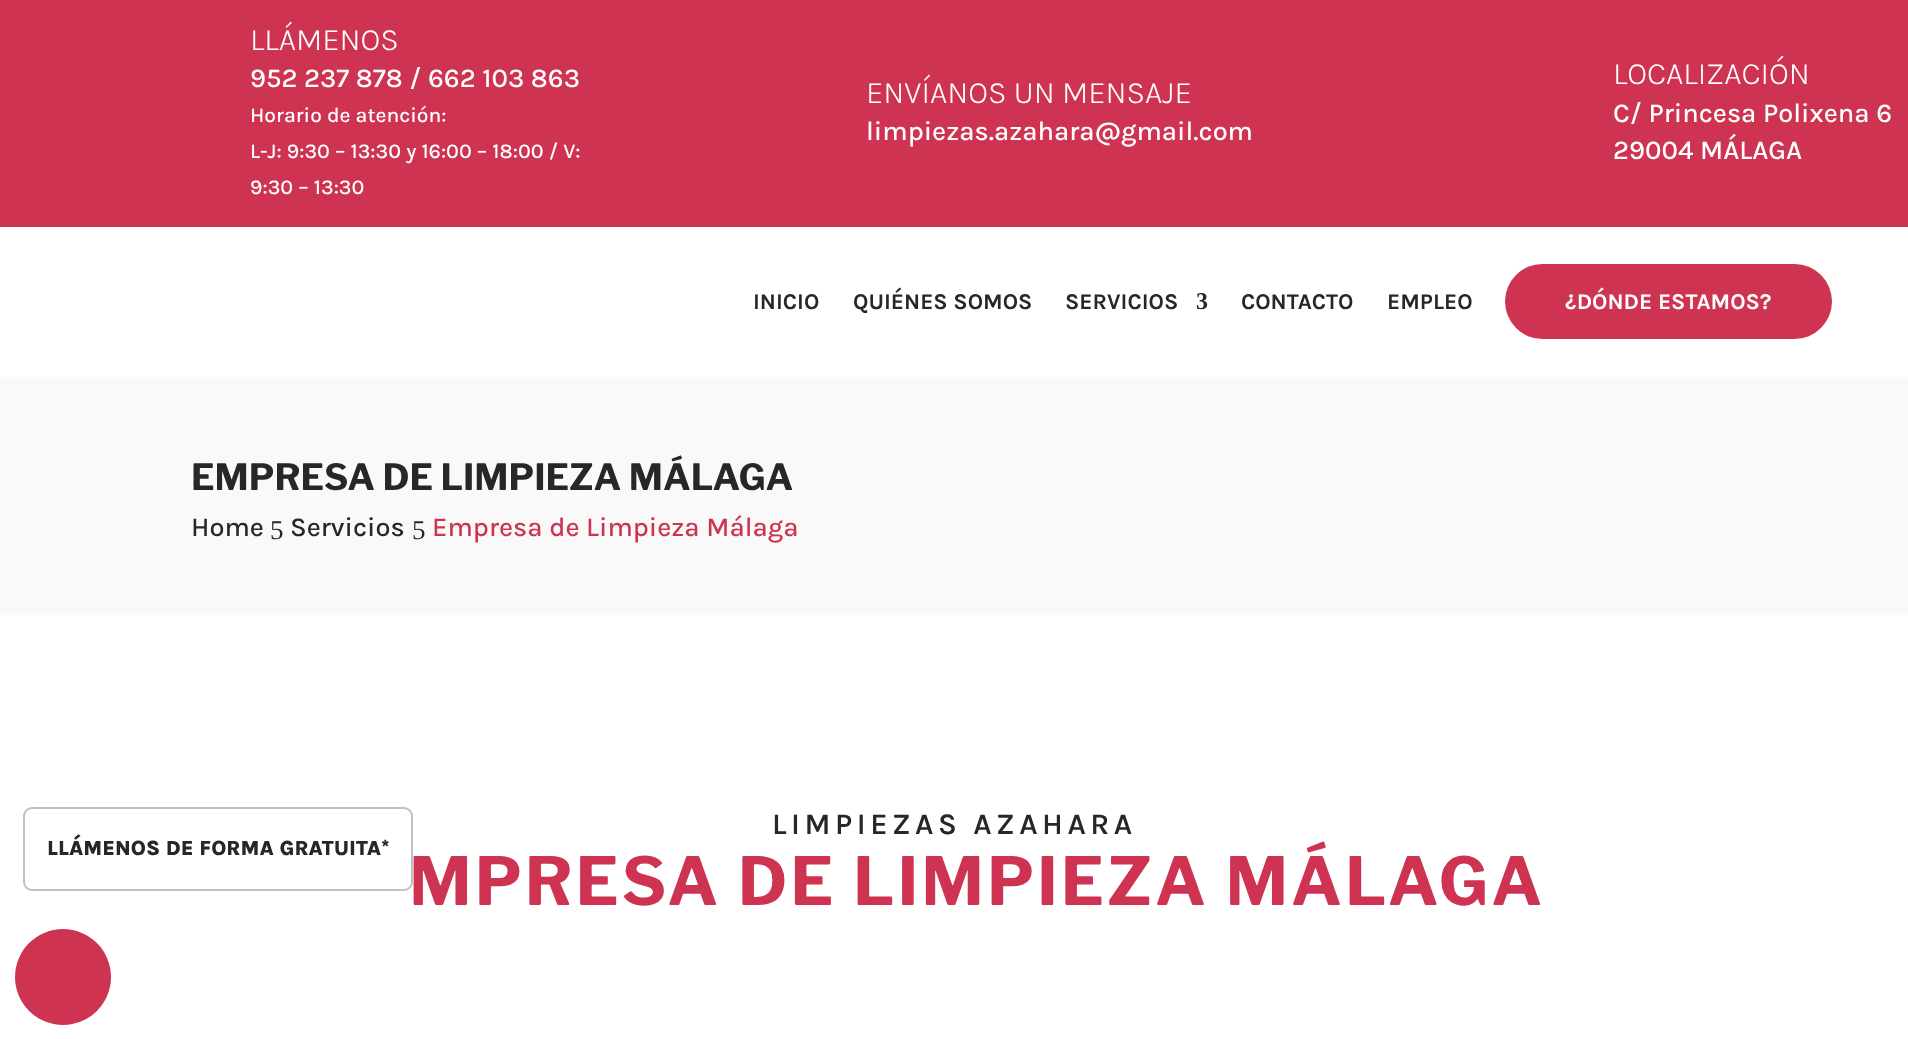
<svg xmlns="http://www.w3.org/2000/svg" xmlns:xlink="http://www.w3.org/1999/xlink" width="1908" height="1039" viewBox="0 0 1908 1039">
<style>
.cls-1{font:300 31.5px Karla;fill:#ffffff}
.cls-2{font:500 27px Karla;fill:#ffffff}
.cls-3{font:500 21px Karla;fill:#ffffff}
.cls-4{font:bold 22.5px Karla;fill:#272727}
.cls-5{font:bold 24px Liberation Serif;fill:#272727}
.cls-6{font:bold 22.5px Karla;fill:#ffffff}
.cls-7{font:bold 36px Libre Franklin;fill:#272727}
.cls-8{font:500 27px Karla;fill:#272727}
.cls-9{font:27px Liberation Serif;fill:#272727}
.cls-10{font:500 27px Karla;fill:#ce3452}
.cls-11{font:600 30px Karla;letter-spacing:4.5px;fill:#272727}
.cls-12{font:bold 66px Libre Franklin;letter-spacing:3px;fill:#ce3452}
.cls-13{font:800 21px Karla;fill:#272727}
</style>
<rect width="100%" height="100%" fill="#ffffff"/>
<rect fill="#ce3452" x="0" y="0" width="1908" height="227"/>
<rect fill="#ce3452" x="1505" y="264" width="327" height="75" rx="37.5"/>
<rect fill="#f9f9f9" x="0" y="377" width="1908" height="238"/>
<rect fill="none" stroke="#c0c0c0" stroke-width="2" x="24" y="808" width="388" height="82" rx="8"/>
<circle fill="#ce3452" cx="63" cy="977" r="48"/>
<text class="cls-1" x="250" y="50">LLÁMENOS</text>
<text class="cls-2" x="250" y="87">952 237 878 / 662 103 863</text>
<text class="cls-3"><tspan x="250" y="122">Horario de atención:</tspan><tspan x="250" y="158">L-J: 9:30 – 13:30 y 16:00 – 18:00 / V:</tspan><tspan x="250" y="194">9:30 – 13:30</tspan></text>
<text class="cls-1" x="866" y="103">ENVÍANOS UN MENSAJE</text>
<text class="cls-2" x="866" y="140">limpiezas.azahara@gmail.com</text>
<text class="cls-1" x="1613" y="84">LOCALIZACIÓN</text>
<text class="cls-2"><tspan x="1613" y="122">C/ Princesa Polixena 6</tspan><tspan x="1613" y="159">29004 MÁLAGA</tspan></text>
<text class="cls-4" x="753" y="309">INICIO</text>
<text class="cls-4" x="853" y="309">QUIÉNES SOMOS</text>
<text class="cls-4" x="1065" y="309">SERVICIOS</text>
<text class="cls-5" x="1196" y="309">3</text>
<text class="cls-4" x="1241" y="309">CONTACTO</text>
<text class="cls-4" x="1387" y="309">EMPLEO</text>
<text class="cls-6" x="1565" y="309">¿DÓNDE ESTAMOS?</text>
<text class="cls-7" x="191" y="490">EMPRESA DE LIMPIEZA MÁLAGA</text>
<text class="cls-8" x="191" y="536">Home</text>
<text class="cls-9" x="270" y="539">5</text>
<text class="cls-8" x="290" y="536">Servicios</text>
<text class="cls-9" x="412" y="539">5</text>
<text class="cls-10" x="432" y="536">Empresa de Limpieza Málaga</text>
<text class="cls-11" x="772" y="834">LIMPIEZAS AZAHARA</text>
<text class="cls-12" x="409" y="905">MPRESA DE LIMPIEZA MÁLAGA</text>
<text class="cls-13" x="47" y="855">LLÁMENOS DE FORMA GRATUITA*</text>
</svg>
